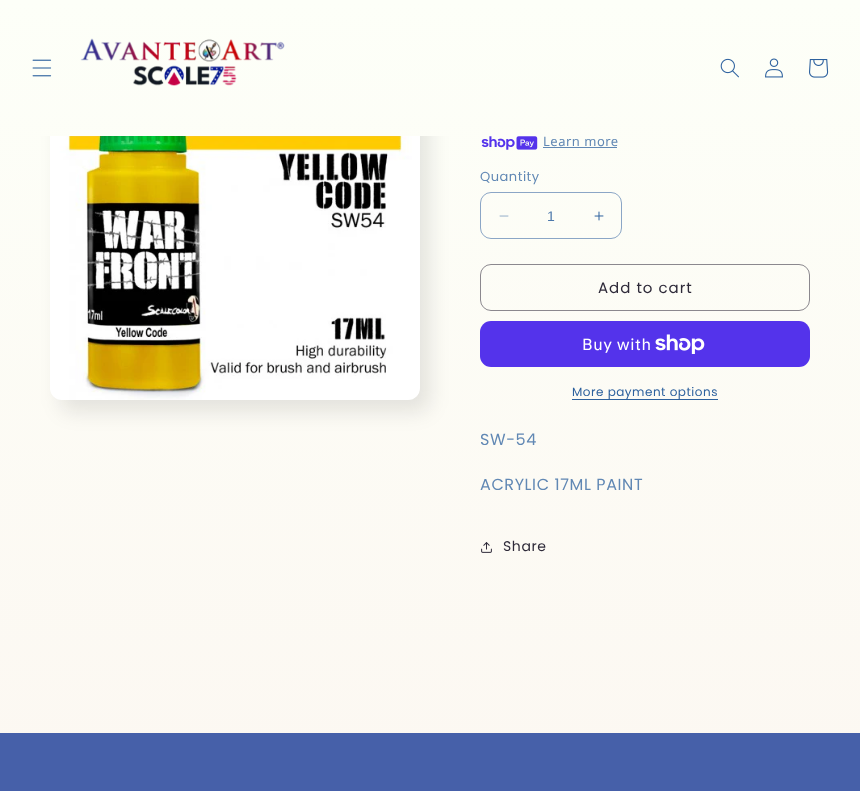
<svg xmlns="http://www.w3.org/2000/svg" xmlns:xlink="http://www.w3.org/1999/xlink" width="860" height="791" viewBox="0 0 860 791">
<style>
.cls-1{font:13px Noto Sans;letter-spacing:0.5px;fill:#6188b4}
.cls-2{font:13px Poppins;letter-spacing:0.5px;fill:#6188b4}
.cls-3{font:14px Liberation Sans;fill:#4c78ab}
.cls-4{font:15px Poppins;letter-spacing:1px;fill:#2e2a39}
.cls-5{font:16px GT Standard;letter-spacing:0.6px;fill:#ffffff}
.cls-6{font:12px Poppins;letter-spacing:0.5px;fill:#2d619e}
.cls-7{font:16px Poppins;letter-spacing:0.6px;fill:#6188b4}
.cls-8{font:14px Poppins;letter-spacing:0.6px;fill:#2e2a39}
</style>
<defs>
<linearGradient id="g1" gradientUnits="userSpaceOnUse" x1="430" y1="0" x2="430" y2="791"><stop offset="0" stop-color="#fdfff8"/><stop offset="0.96" stop-color="#fcf8f2"/></linearGradient>
</defs>
<rect width="100%" height="100%" fill="#ffffff"/>
<rect fill="url(#g1)" x="0" y="136" width="860" height="597"/>
<rect fill="#0e0c15" fill-opacity="0.1" filter="blur(10px)" x="60" y="42" width="370" height="370" rx="12"/>
<rect fill="url(#g1)" x="0" y="0" width="860" height="136"/>
<image xlink:href="image0.png" x="32" y="59" width="20" height="18"/>
<image xlink:href="image1.png" x="80" y="38" width="205" height="48"/>
<image xlink:href="image2.png" x="720" y="58" width="19" height="20"/>
<image xlink:href="image3.png" x="765" y="58" width="18" height="20"/>
<image xlink:href="image4.png" x="809" y="59" width="20" height="19"/>
<image xlink:href="image5.png" x="50" y="136" width="370" height="264"/>
<image xlink:href="image6.png" x="481" y="136" width="57" height="14"/>
<rect fill="#6188b4" x="543" y="147" width="74" height="1"/>
<image xlink:href="image7.png" x="499" y="215" width="10" height="2"/>
<image xlink:href="image8.png" x="594" y="211" width="10" height="10"/>
<rect fill="none" stroke="#8ba6c6" x="480.5" y="192.5" width="141" height="46" rx="10.5"/>
<rect fill="none" stroke="#8b888e" x="480.5" y="264.5" width="329" height="46" rx="10.5"/>
<rect fill="#5433eb" x="480" y="321" width="330" height="46" rx="11"/>
<image xlink:href="image9.png" x="655" y="334" width="50" height="20"/>
<rect fill="#2d619e" x="572" y="399" width="146" height="1"/>
<image xlink:href="image10.png" x="481" y="542" width="11" height="11"/>
<rect fill="#4660a9" x="0" y="733" width="860" height="58"/>
<text class="cls-1" x="543" y="146">Learn more</text>
<text class="cls-2" x="480" y="181">Quantity</text>
<text class="cls-3" x="547" y="221">1</text>
<text class="cls-4" x="598" y="293">Add to cart</text>
<text class="cls-5" x="582" y="350">Buy with</text>
<text class="cls-6" x="572" y="396">More payment options</text>
<text class="cls-7" x="480" y="445">SW-54</text>
<text class="cls-7" x="480" y="490">ACRYLIC 17ML PAINT</text>
<text class="cls-8" x="503" y="551">Share</text>
</svg>
